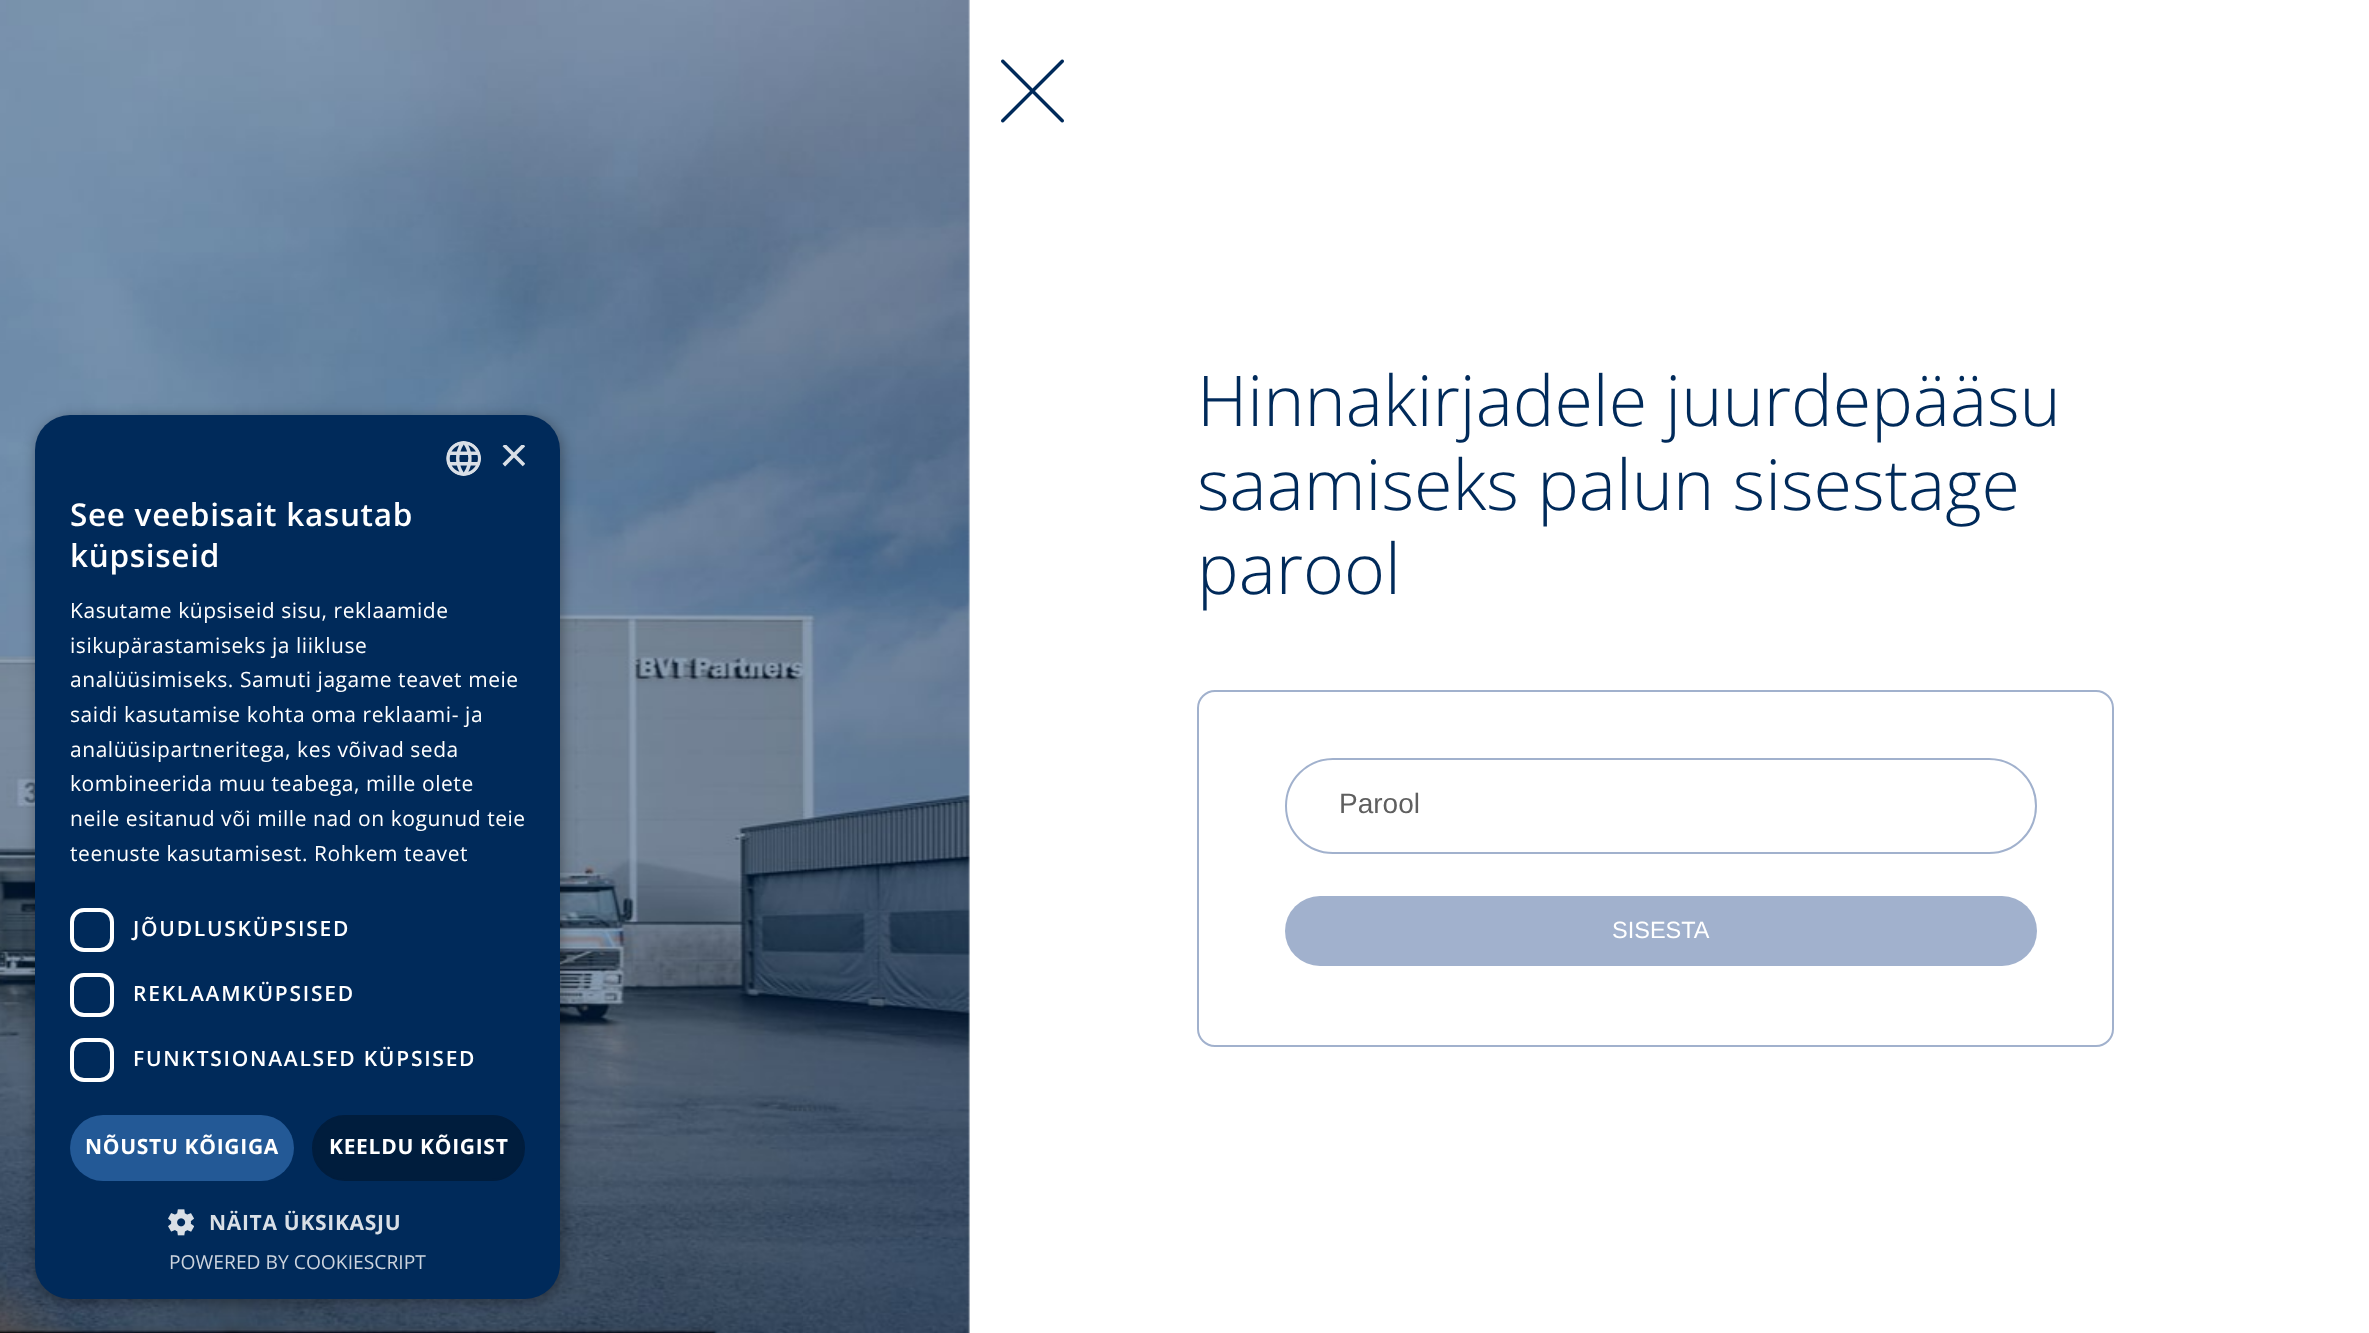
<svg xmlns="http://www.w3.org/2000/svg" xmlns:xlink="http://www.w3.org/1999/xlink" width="2369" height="1333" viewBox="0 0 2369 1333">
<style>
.cls-1{font:51px Liberation Sans;fill:#d9dfe6}
.cls-2{font:600 31.5px Open Sans;letter-spacing:0.7px;fill:#ffffff}
.cls-3{font:21px Open Sans;letter-spacing:0.55px;fill:#ffffff}
.cls-4{font:600 21px Open Sans;letter-spacing:1.75px;fill:#ffffff}
.cls-5{font:bold 21px Open Sans;letter-spacing:0.7px;fill:#ffffff}
.cls-6{font:bold 21px Open Sans;letter-spacing:0.7px;fill:#d9dfe6}
.cls-7{font:19.25px Open Sans;fill:#ccd4de}
.cls-8{font:300 70px Open Sans;fill:#002a5a}
.cls-9{font:28px Liberation Sans;fill:#5f5f5f}
.cls-10{font:23.5px Liberation Sans;fill:#ffffff}
</style>
<defs>
<clipPath id="clip1"><rect x="499" y="445" width="26" height="26"/></clipPath>
</defs>
<rect width="100%" height="100%" fill="#ffffff"/>
<image xlink:href="image2.png" x="0" y="0" width="970" height="1333"/>
<rect fill="#000000" fill-opacity="0.35" filter="blur(7px)" x="37" y="418" width="525" height="884" rx="35"/>
<rect fill="#002a5a" x="35" y="415" width="525" height="884" rx="35"/>
<image xlink:href="image0.png" x="446" y="441" width="35" height="35"/>
<rect fill="none" stroke="#ffffff" stroke-width="4" x="72" y="910" width="40" height="40" rx="12"/>
<rect fill="none" stroke="#ffffff" stroke-width="4" x="72" y="975" width="40" height="40" rx="12"/>
<rect fill="none" stroke="#ffffff" stroke-width="4" x="72" y="1040" width="40" height="40" rx="12"/>
<rect fill="#235996" x="70" y="1115" width="224" height="66" rx="33"/>
<rect fill="#001d3d" stroke="#001d3d" stroke-width="2" x="313" y="1116" width="211" height="64" rx="32"/>
<image xlink:href="image1.png" x="168" y="1209" width="26" height="27"/>
<image xlink:href="image3.png" x="1001" y="59" width="63" height="64"/>
<rect fill="none" stroke="#a1b1cd" stroke-width="2" x="1198" y="691" width="915" height="355" rx="17"/>
<rect fill="none" stroke="#a1b1cd" stroke-width="2" x="1286" y="759" width="750" height="94" rx="47"/>
<rect fill="#a1b1cd" x="1285" y="896" width="752" height="70" rx="35"/>
<g clip-path="url(#clip1)">
<text class="cls-1" x="499" y="472">×</text>
</g>
<text class="cls-2"><tspan x="70" y="526">See veebisait kasutab</tspan><tspan x="70" y="567">küpsiseid</tspan></text>
<text class="cls-3"><tspan x="70" y="618">Kasutame küpsiseid sisu, reklaamide</tspan><tspan x="70" y="653">isikupärastamiseks ja liikluse</tspan><tspan x="70" y="687">analüüsimiseks. Samuti jagame teavet meie</tspan><tspan x="70" y="722">saidi kasutamise kohta oma reklaami- ja</tspan><tspan x="70" y="757">analüüsipartneritega, kes võivad seda</tspan><tspan x="70" y="791">kombineerida muu teabega, mille olete</tspan><tspan x="70" y="826">neile esitanud või mille nad on kogunud teie</tspan><tspan x="70" y="861">teenuste kasutamisest. Rohkem teavet</tspan></text>
<text class="cls-4" x="133" y="936">JÕUDLUSKÜPSISED</text>
<text class="cls-4" x="133" y="1001">REKLAAMKÜPSISED</text>
<text class="cls-4" x="133" y="1066">FUNKTSIONAALSED KÜPSISED</text>
<text class="cls-5" x="85" y="1154">NÕUSTU KÕIGIGA</text>
<text class="cls-5" x="329" y="1154">KEELDU KÕIGIST</text>
<text class="cls-6" x="209" y="1230">NÄITA ÜKSIKASJU</text>
<text class="cls-7" x="169" y="1269">POWERED BY COOKIESCRIPT</text>
<text class="cls-8"><tspan x="1197" y="426">Hinnakirjadele juurdepääsu</tspan><tspan x="1197" y="510">saamiseks palun sisestage</tspan><tspan x="1197" y="594">parool</tspan></text>
<text class="cls-9" x="1339" y="813">Parool</text>
<text class="cls-10" x="1612" y="938">SISESTA</text>
</svg>
